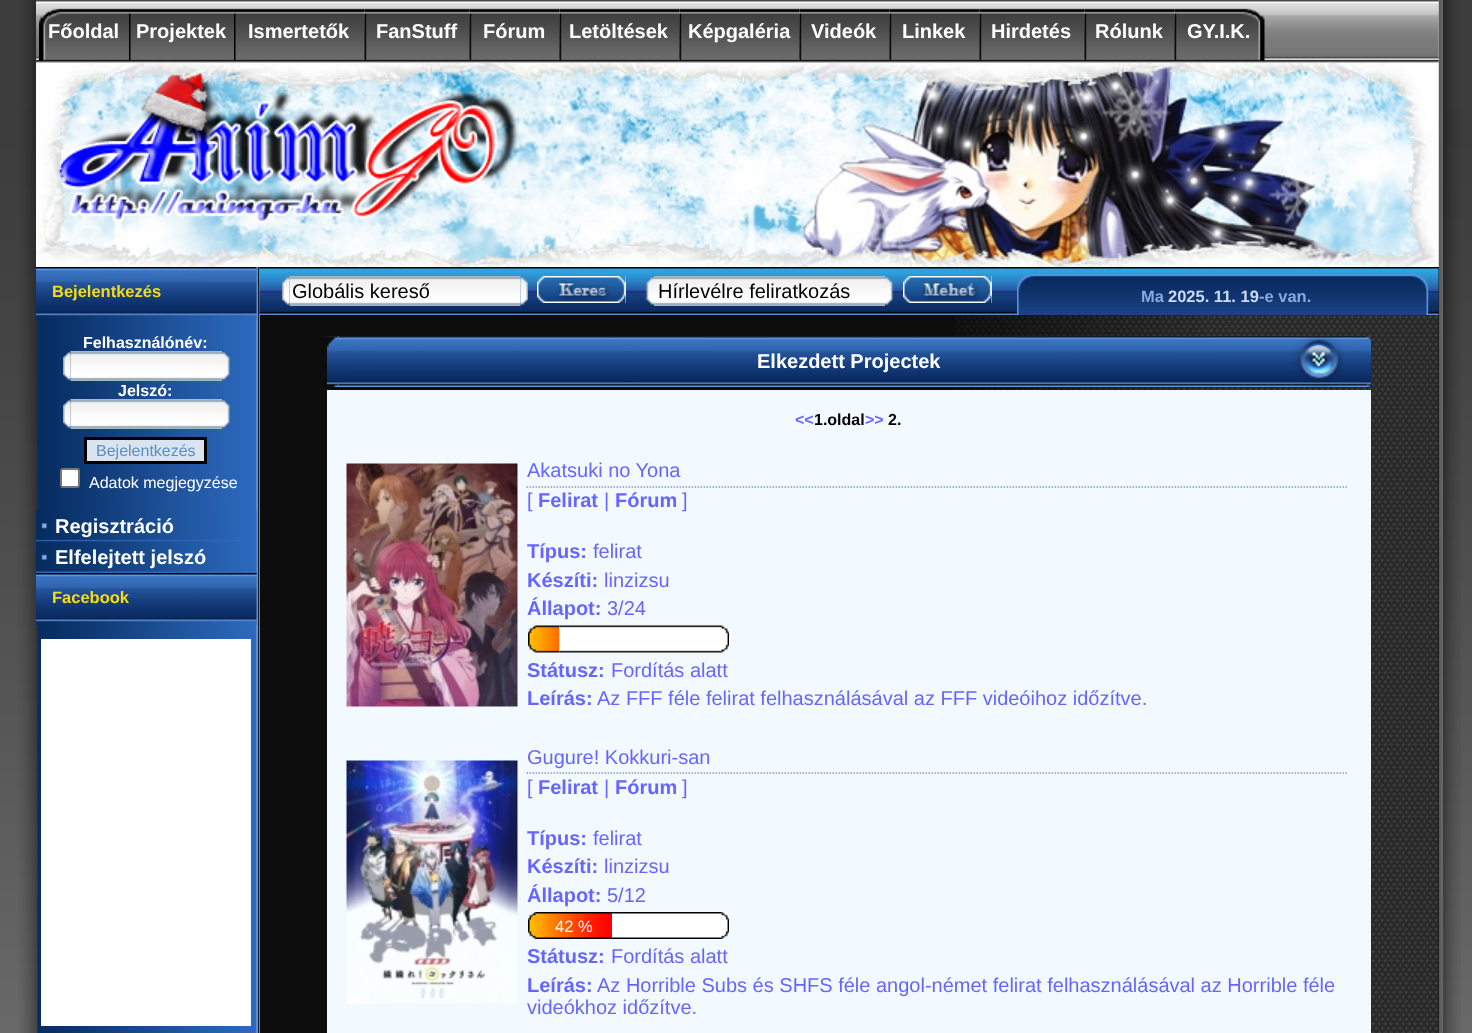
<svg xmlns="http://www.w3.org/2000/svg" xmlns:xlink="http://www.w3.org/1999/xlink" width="1472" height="1033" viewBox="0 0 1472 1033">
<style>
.cls-1{font:bold 20px Liberation Sans;fill:#ffffff}
.cls-2{font:bold 16.5px Liberation Sans;fill:#f7db16}
.cls-3{font:bold 16px Liberation Sans;fill:#ffffff}
.cls-4{font:16px Liberation Sans;fill:#5b8fbe}
.cls-5{font:16px Liberation Sans;fill:#ffffff}
.cls-6{font:20px Liberation Sans;fill:#000000}
.cls-7{font:bold 16.5px Liberation Sans;fill:#88a8df}
.cls-8{font:bold 16.5px Liberation Sans;fill:#cbdcf9}
.cls-9{font:bold 16px Liberation Sans;fill:#6666ff}
.cls-10{font:bold 16px Liberation Sans;fill:#000000}
.cls-11{font:20px Liberation Sans;fill:#6666ff}
.cls-12{font:bold 20px Liberation Sans;fill:#6666ff}
.cls-13{font:16.5px Liberation Sans;fill:#ffffff}
</style>
<defs>
<clipPath id="clip1"><rect x="293" y="281" width="225" height="22"/></clipPath>
</defs>
<rect width="100%" height="100%" fill="#ffffff"/>
<image xlink:href="image0.png" x="0" y="0" width="1472" height="1033"/>
<image xlink:href="image1.png" x="37" y="0" width="1406" height="1033"/>
<image xlink:href="image2.png" x="18" y="0" width="20" height="1033"/>
<image xlink:href="image3.png" x="1443" y="0" width="18" height="1033"/>
<image xlink:href="image4.png" x="36" y="0" width="1403" height="63"/>
<image xlink:href="image5.png" x="39" y="8" width="90" height="53"/>
<image xlink:href="image6.png" x="129" y="8" width="105" height="53"/>
<image xlink:href="image7.png" x="234" y="8" width="131" height="53"/>
<image xlink:href="image8.png" x="364" y="8" width="106" height="53"/>
<image xlink:href="image9.png" x="469" y="8" width="91" height="53"/>
<image xlink:href="image10.png" x="559" y="8" width="121" height="53"/>
<image xlink:href="image10.png" x="679" y="8" width="121" height="53"/>
<image xlink:href="image9.png" x="799" y="8" width="91" height="53"/>
<image xlink:href="image9.png" x="889" y="8" width="91" height="53"/>
<image xlink:href="image8.png" x="979" y="8" width="106" height="53"/>
<image xlink:href="image9.png" x="1084" y="8" width="91" height="53"/>
<image xlink:href="image11.png" x="1174" y="8" width="91" height="53"/>
<image xlink:href="image12.png" x="36" y="63" width="1403" height="204"/>
<image xlink:href="image13.png" x="36" y="267" width="221" height="53"/>
<image xlink:href="image14.png" x="63" y="352" width="8" height="28"/>
<image xlink:href="image15.png" x="70" y="351" width="152" height="30"/>
<image xlink:href="image16.png" x="222" y="352" width="8" height="28"/>
<image xlink:href="image14.png" x="63" y="400" width="8" height="28"/>
<image xlink:href="image15.png" x="70" y="399" width="152" height="30"/>
<image xlink:href="image17.png" x="222" y="400" width="8" height="28"/>
<rect fill="#dae4f0" stroke="#000000" stroke-width="3" x="85.5" y="438.5" width="120" height="24"/>
<rect fill="#ffffff" stroke="#767676" stroke-width="2" x="61" y="469" width="18" height="18" rx="2"/>
<image xlink:href="image18.png" x="36" y="510" width="221" height="32"/>
<image xlink:href="image19.png" x="36" y="541" width="221" height="32"/>
<image xlink:href="image20.png" x="36" y="573" width="221" height="53"/>
<rect fill="#ffffff" x="41" y="639" width="210" height="387"/>
<rect fill="#0d0d0d" x="260" y="267" width="1179" height="766"/>
<image xlink:href="image21.png" x="955" y="267" width="484" height="766"/>
<image xlink:href="image22.png" x="259" y="267" width="1180" height="48"/>
<image xlink:href="image23.png" x="282" y="277" width="8" height="28"/>
<image xlink:href="image24.png" x="289" y="276" width="232" height="30"/>
<image xlink:href="image25.png" x="520" y="277" width="8" height="28"/>
<rect fill="#dae4f0" x="625" y="276" width="1" height="27"/>
<image xlink:href="image26.png" x="537" y="276" width="89" height="27"/>
<image xlink:href="image27.png" x="646" y="277" width="8" height="28"/>
<image xlink:href="image28.png" x="654" y="276" width="231" height="30"/>
<image xlink:href="image29.png" x="885" y="277" width="8" height="28"/>
<rect fill="#dae4f0" x="991" y="276" width="1" height="27"/>
<image xlink:href="image30.png" x="903" y="276" width="89" height="27"/>
<image xlink:href="image31.png" x="1017" y="270" width="419" height="45"/>
<image xlink:href="image32.png" x="327" y="336" width="1044" height="51"/>
<rect fill="#f2faff" x="327" y="390" width="1044" height="643"/>
<image xlink:href="image33.png" x="346" y="463" width="172" height="244"/>
<path fill="none" stroke="#76a1bb" stroke-width="1.5" stroke-dasharray="1.5 1.5" d="M526.5 487H1348.5"/>
<image xlink:href="image34.png" x="528" y="625" width="9" height="28"/>
<image xlink:href="image35.png" x="537" y="625" width="23" height="28"/>
<image xlink:href="image36.png" x="559" y="625" width="161" height="28"/>
<image xlink:href="image37.png" x="720" y="625" width="9" height="28"/>
<image xlink:href="image38.png" x="346" y="760" width="172" height="244"/>
<path fill="none" stroke="#76a1bb" stroke-width="1.5" stroke-dasharray="1.5 1.5" d="M526.5 773H1348.5"/>
<image xlink:href="image39.png" x="528" y="912" width="9" height="27"/>
<image xlink:href="image40.png" x="537" y="912" width="75" height="27"/>
<image xlink:href="image41.png" x="612" y="912" width="108" height="27"/>
<image xlink:href="image42.png" x="720" y="912" width="9" height="27"/>
<text class="cls-1" x="48" y="38">Főoldal</text>
<text class="cls-1" x="136" y="38">Projektek</text>
<text class="cls-1" x="248" y="38">Ismertetők</text>
<text class="cls-1" x="376" y="38">FanStuff</text>
<text class="cls-1" x="483" y="38">Fórum</text>
<text class="cls-1" x="569" y="38">Letöltések</text>
<text class="cls-1" x="688" y="38">Képgaléria</text>
<text class="cls-1" x="811" y="38">Videók</text>
<text class="cls-1" x="902" y="38">Linkek</text>
<text class="cls-1" x="991" y="38">Hirdetés</text>
<text class="cls-1" x="1095" y="38">Rólunk</text>
<text class="cls-1" x="1187" y="38">GY.I.K.</text>
<text class="cls-2" x="52" y="297">Bejelentkezés</text>
<text class="cls-3" x="83" y="348">Felhasználónév:</text>
<text class="cls-3" x="118" y="396">Jelszó:</text>
<text class="cls-4" x="96" y="456">Bejelentkezés</text>
<text class="cls-5" x="89" y="488">Adatok megjegyzése</text>
<text class="cls-1"><tspan x="55" y="533">Regisztráció</tspan><tspan x="55" y="564">Elfelejtett jelszó</tspan></text>
<text class="cls-2" x="52" y="603">Facebook</text>
<g clip-path="url(#clip1)">
<text class="cls-6" x="292" y="298">Globális kereső</text>
</g>
<text class="cls-6" x="658" y="298">Hírlevélre feliratkozás</text>
<text class="cls-7" x="1141" y="302">Ma</text>
<text class="cls-8" x="1168" y="302">2025. 11. 19</text>
<text class="cls-7" x="1259" y="302">-e van.</text>
<text class="cls-1" x="757" y="368">Elkezdett Projectek</text>
<text class="cls-9" x="795" y="425">&lt;&lt;</text>
<text class="cls-10" x="814" y="425">1.oldal</text>
<text class="cls-9" x="865" y="425">&gt;&gt;</text>
<text class="cls-10" x="888" y="425">2.</text>
<text class="cls-11"><tspan x="527" y="477">Akatsuki no Yona</tspan><tspan x="527" y="507">[</tspan></text>
<text class="cls-12" x="538" y="507">Felirat</text>
<text class="cls-11" x="604" y="507">|</text>
<text class="cls-12" x="615" y="507">Fórum</text>
<text class="cls-11" x="682" y="507">]</text>
<text class="cls-12" x="527" y="558">Típus:</text>
<text class="cls-11" x="593" y="558">felirat</text>
<text class="cls-12" x="527" y="587">Készíti:</text>
<text class="cls-11" x="604" y="587">linzizsu</text>
<text class="cls-12" x="527" y="615">Állapot:</text>
<text class="cls-11" x="607" y="615">3/24</text>
<text class="cls-12" x="527" y="677">Státusz:</text>
<text class="cls-11" x="611" y="677">Fordítás alatt</text>
<text class="cls-12" x="527" y="705">Leírás:</text>
<text class="cls-11" x="597" y="705">Az FFF féle felirat felhasználásával az FFF videóihoz időzítve.</text>
<text class="cls-11"><tspan x="527" y="764">Gugure! Kokkuri-san</tspan><tspan x="527" y="794">[</tspan></text>
<text class="cls-12" x="538" y="794">Felirat</text>
<text class="cls-11" x="604" y="794">|</text>
<text class="cls-12" x="615" y="794">Fórum</text>
<text class="cls-11" x="682" y="794">]</text>
<text class="cls-12" x="527" y="845">Típus:</text>
<text class="cls-11" x="593" y="845">felirat</text>
<text class="cls-12" x="527" y="873">Készíti:</text>
<text class="cls-11" x="604" y="873">linzizsu</text>
<text class="cls-12" x="527" y="902">Állapot:</text>
<text class="cls-11" x="607" y="902">5/12</text>
<text class="cls-13" x="555" y="932">42 %</text>
<text class="cls-12" x="527" y="963">Státusz:</text>
<text class="cls-11" x="611" y="963">Fordítás alatt</text>
<text class="cls-12" x="527" y="992">Leírás:</text>
<text class="cls-11" x="597" y="992">Az Horrible Subs és SHFS féle angol-német felirat felhasználásával az Horrible féle</text>
<text class="cls-11" x="527" y="1014">videókhoz időzítve.</text>
</svg>
